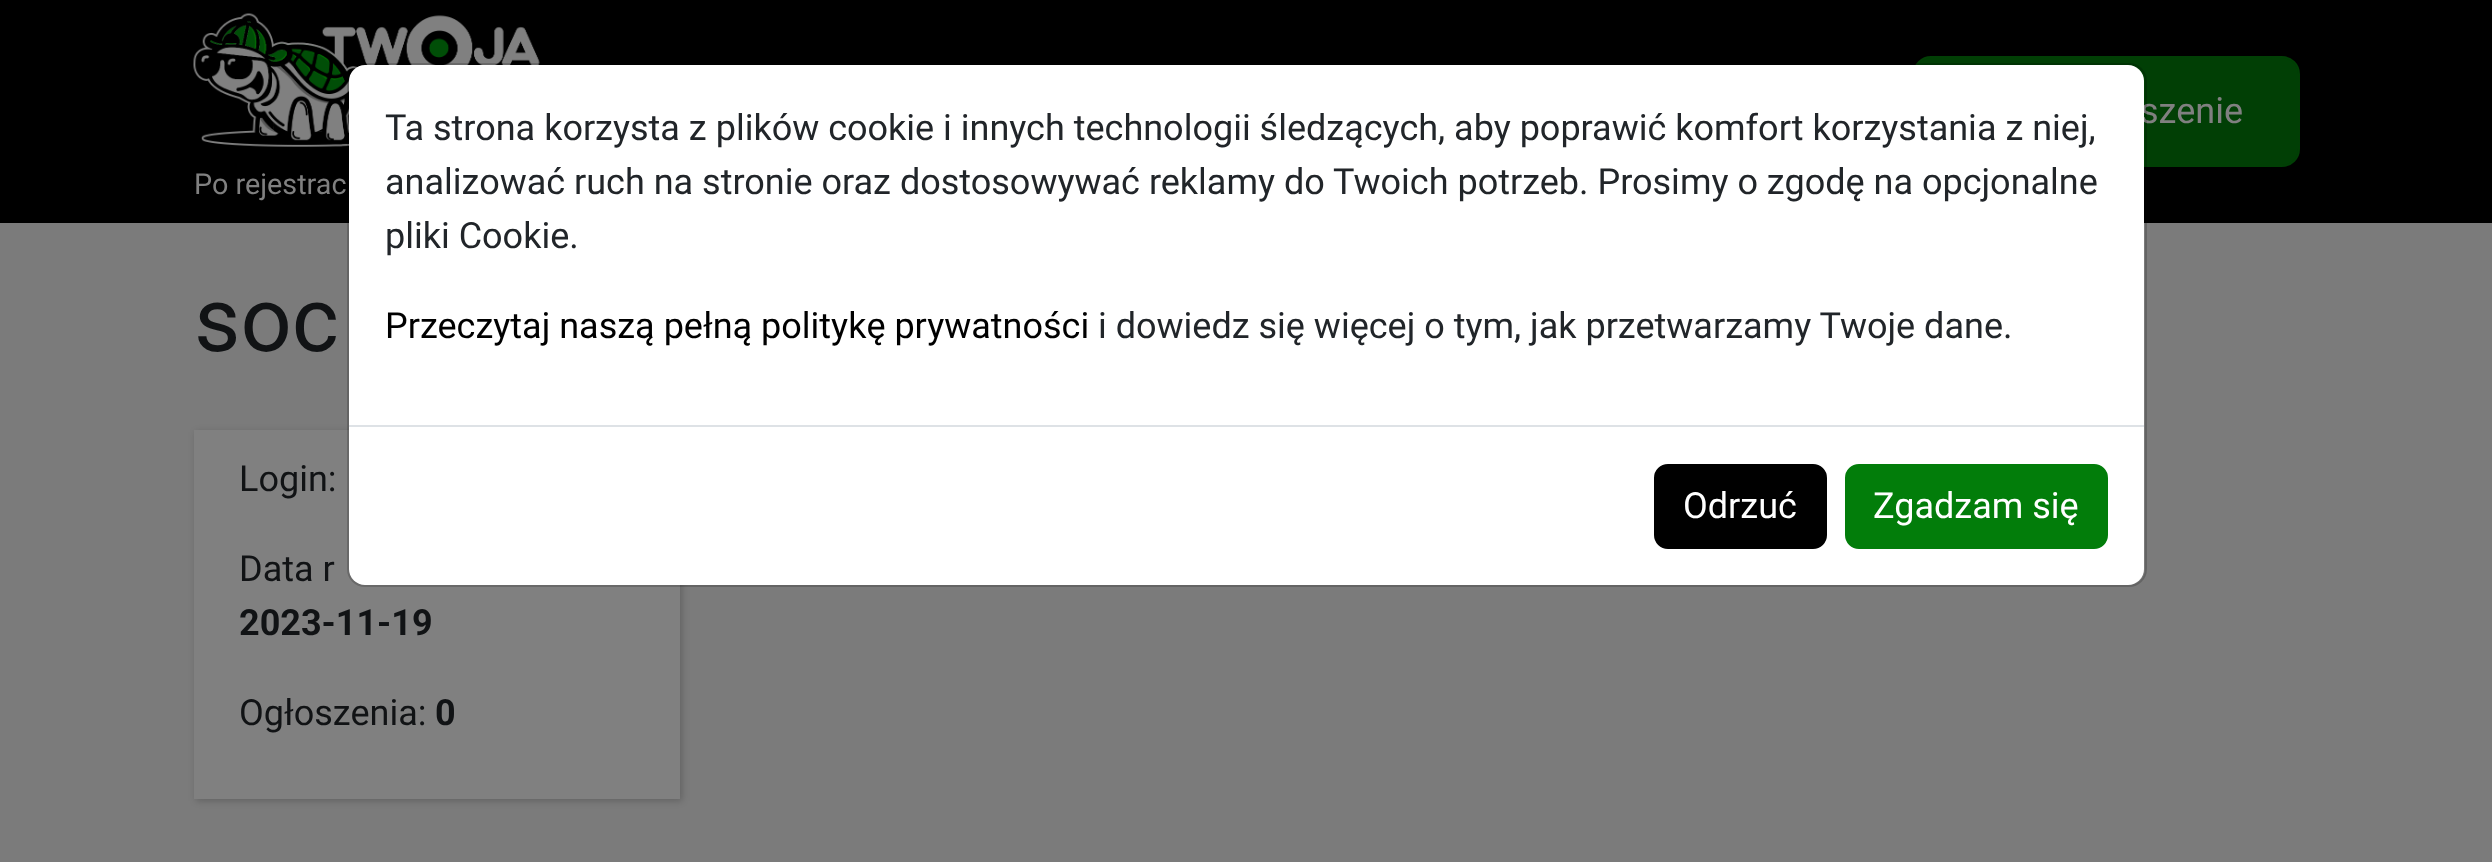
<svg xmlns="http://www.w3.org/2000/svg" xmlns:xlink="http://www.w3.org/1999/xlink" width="2492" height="862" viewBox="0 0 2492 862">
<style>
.cls-1{font:36px Roboto;fill:#808080}
.cls-2{font:28.75px Roboto;fill:#808080}
.cls-3{font:90px Roboto;fill:#111315}
.cls-4{font:36px Roboto;fill:#111315}
.cls-5{font:bold 36px Roboto;fill:#111315}
.cls-6{font:36px Roboto;fill:#212529}
.cls-7{font:36px Roboto;fill:#000000}
.cls-8{font:36px Roboto;fill:#ffffff}
</style>
<rect width="100%" height="100%" fill="#7b7b7b"/>
<rect fill="#000000" x="0" y="0" width="2492" height="223"/>
<rect fill="#013f05" stroke="#013f05" stroke-width="2" x="1914" y="57" width="385" height="109" rx="17"/>
<image xlink:href="image0.png" x="193" y="13" width="347" height="134"/>
<rect fill="#000000" fill-opacity="0.2" filter="blur(3.5px)" x="196" y="432" width="486" height="369"/>
<rect fill="#808080" x="194" y="430" width="486" height="369"/>
<text class="cls-1" x="2140" y="123">szenie</text>
<text class="cls-2" x="194" y="194">Po rejestrac</text>
<text class="cls-3" x="194" y="351">soc</text>
<text class="cls-4" x="239" y="491">Login:</text>
<text class="cls-4" x="239" y="581">Data r</text>
<text class="cls-5" x="239" y="635">2023-11-19</text>
<text class="cls-4" x="239" y="725">Ogłoszenia:</text>
<text class="cls-5" x="435" y="725">0</text>
<rect fill="#ffffff" x="349" y="65" width="1795" height="520" rx="16"/>
<rect fill="none" stroke="#000000" stroke-opacity="0.18" stroke-width="2" x="348" y="64" width="1798" height="522" rx="17"/>
<text class="cls-6"><tspan x="385" y="140">Ta strona korzysta z plików cookie i innych technologii śledzących, aby poprawić komfort korzystania z niej,</tspan><tspan x="385" y="194">analizować ruch na stronie oraz dostosowywać reklamy do Twoich potrzeb. Prosimy o zgodę na opcjonalne</tspan><tspan x="385" y="248">pliki Cookie.</tspan></text>
<text class="cls-7" x="385" y="338">Przeczytaj naszą pełną politykę prywatności</text>
<text class="cls-6" x="1098" y="338">i dowiedz się więcej o tym, jak przetwarzamy Twoje dane.</text>
<rect fill="#dee2e6" x="349" y="425" width="1795" height="2"/>
<rect fill="#000000" stroke="#000000" stroke-width="2" x="1655" y="465" width="171" height="83" rx="13"/>
<text class="cls-8" x="1683" y="518">Odrzuć</text>
<rect fill="#027d0a" stroke="#027d0a" stroke-width="2" x="1846" y="465" width="261" height="83" rx="13"/>
<text class="cls-8" x="1873" y="518">Zgadzam się</text>
</svg>
